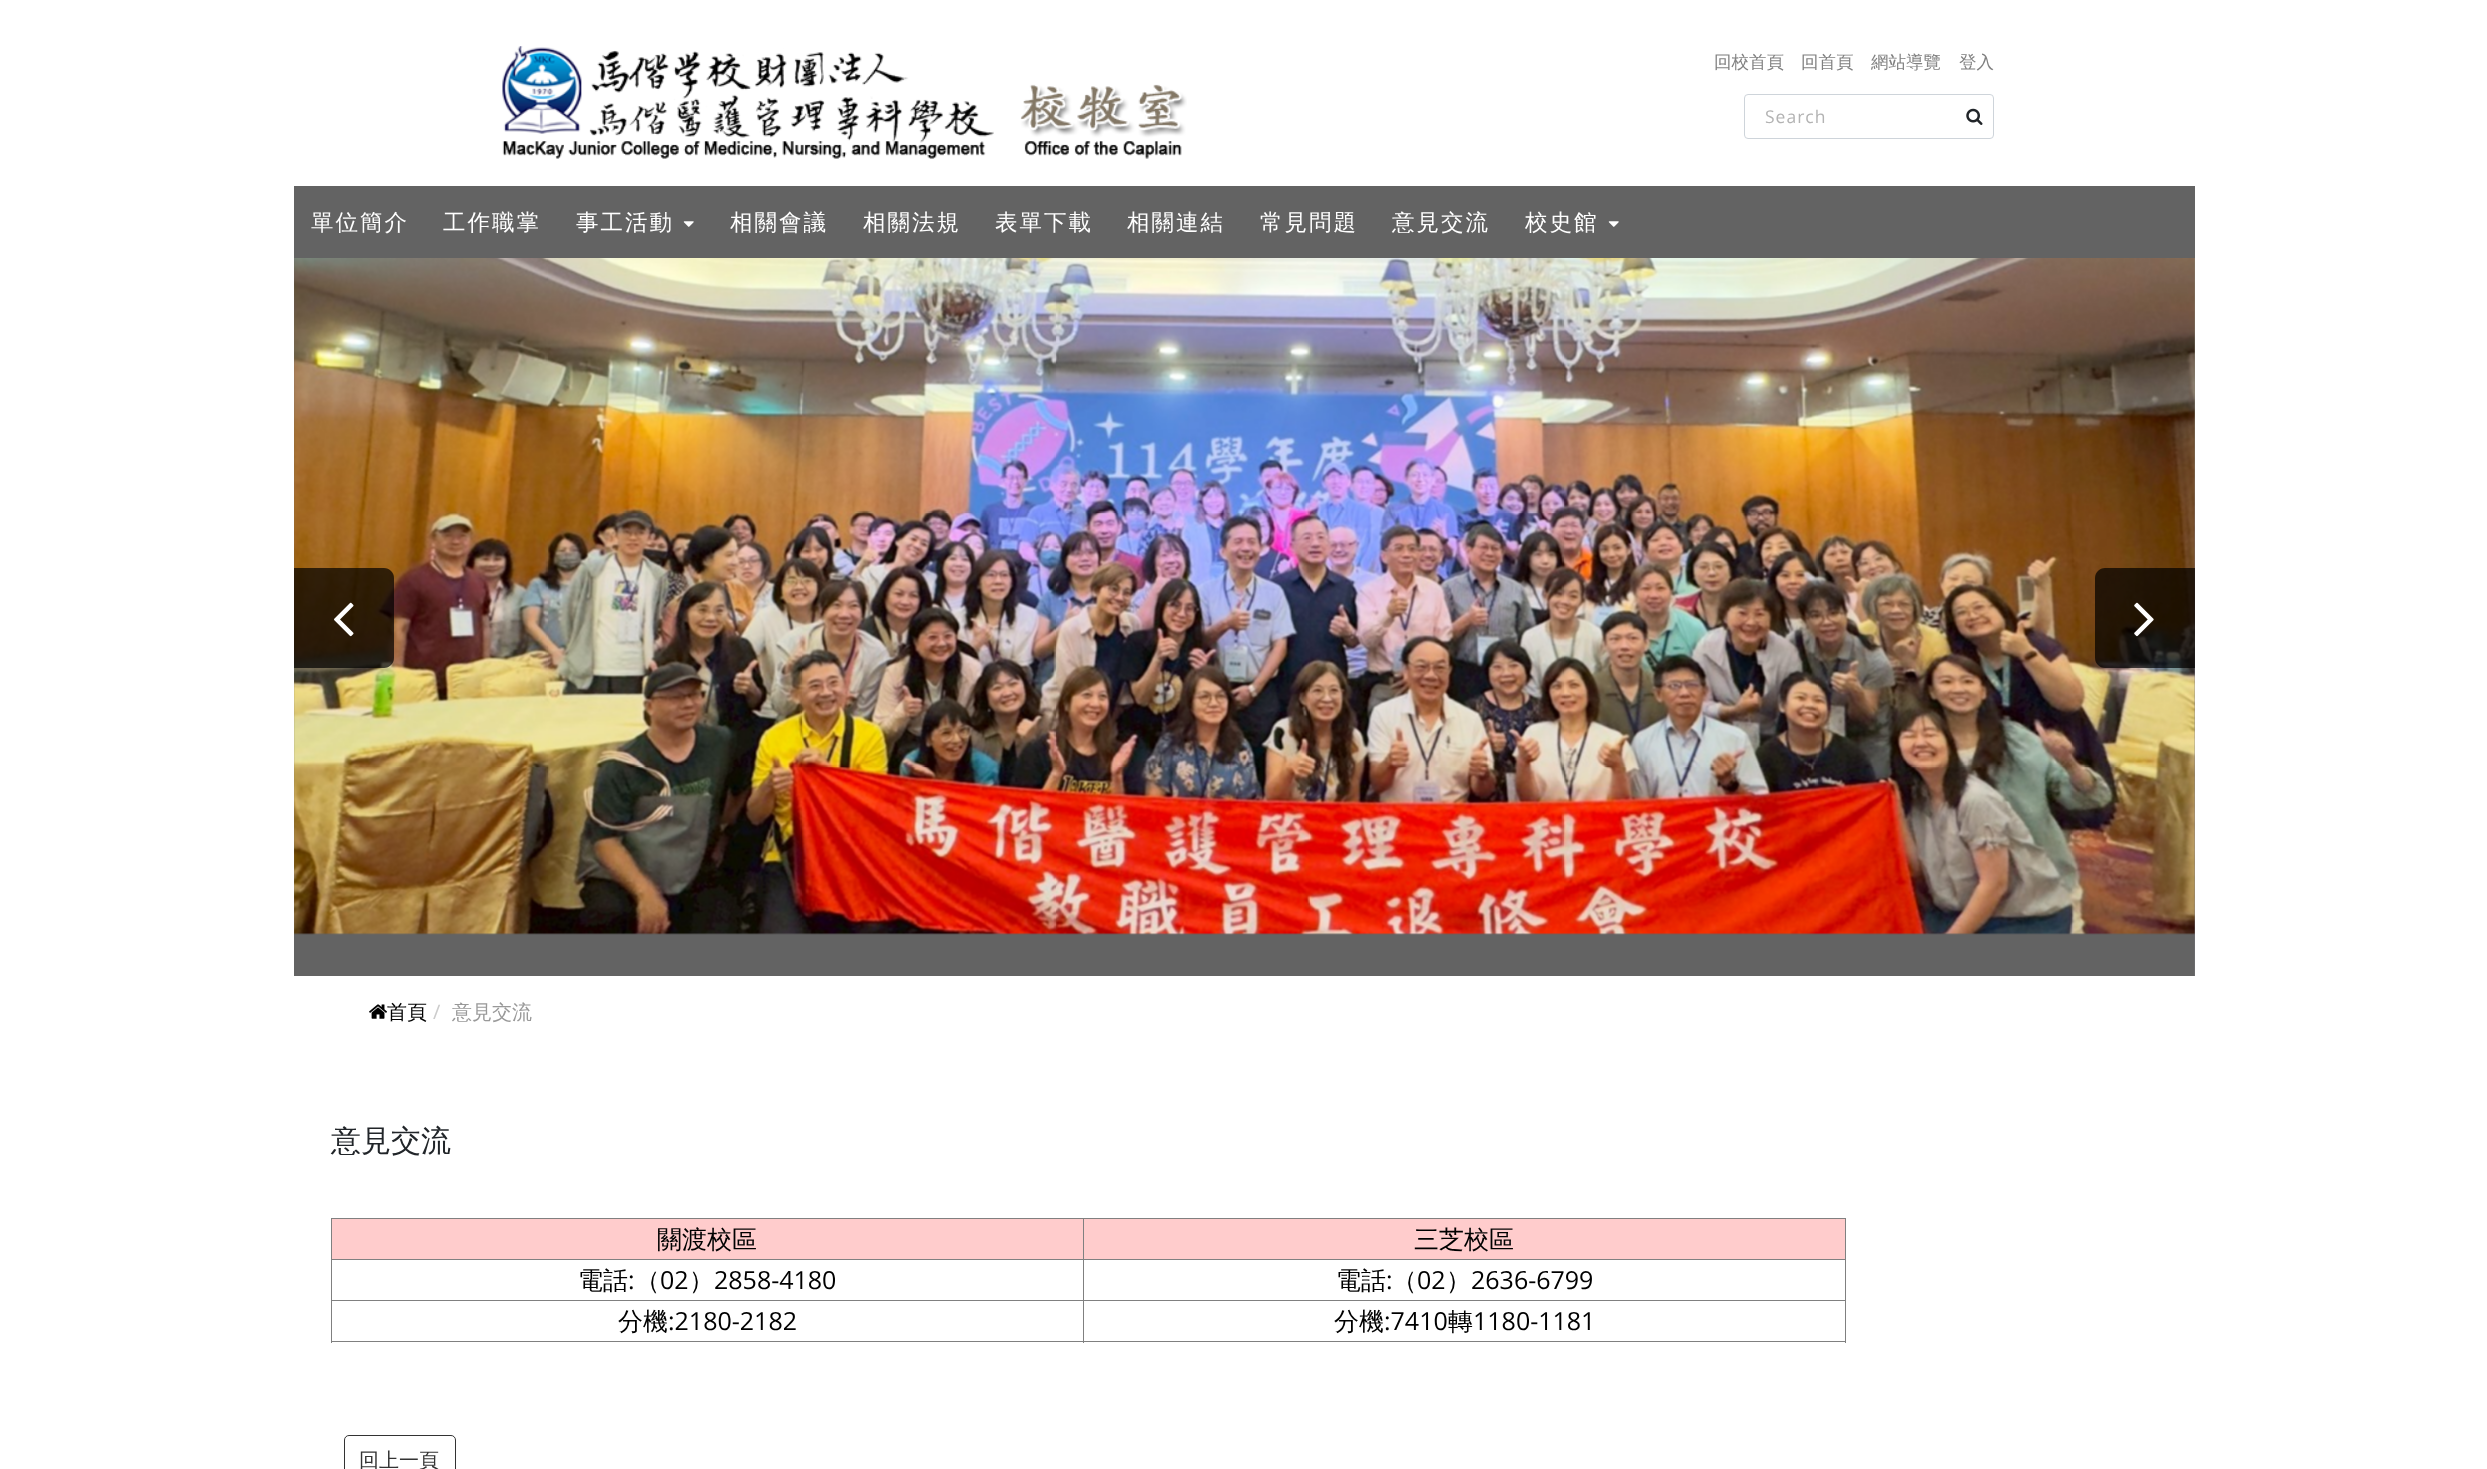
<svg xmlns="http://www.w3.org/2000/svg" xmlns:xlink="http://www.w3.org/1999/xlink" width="2487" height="1469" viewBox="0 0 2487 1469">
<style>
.cls-1{font:500 17.5px WenQuanYi Zen Hei;fill:#808080}
.cls-2{font:17.5px Open Sans;letter-spacing:1px;fill:#b3b3b3}
.cls-3{font:500 22.5px WenQuanYi Zen Hei;letter-spacing:2px;fill:#ffffff}
.cls-4{font:500 20px WenQuanYi Zen Hei;fill:#000000}
.cls-5{font:20px Open Sans;fill:#cccccc}
.cls-6{font:500 20px WenQuanYi Zen Hei;fill:#999999}
.cls-7{font:500 30px WenQuanYi Zen Hei;fill:#212529}
.cls-8{font:500 25px WenQuanYi Zen Hei;fill:#000000}
.cls-9{font:25px Open Sans;fill:#000000}
.cls-10{font:500 20px WenQuanYi Zen Hei;fill:#333333}
</style>
<rect width="100%" height="100%" fill="#ffffff"/>
<image xlink:href="image0.png" x="502" y="46" width="685" height="113"/>
<rect fill="none" stroke="#ced4da" x="1744.5" y="94.5" width="249" height="44" rx="3.5"/>
<image xlink:href="image1.png" x="1966" y="108" width="17" height="17"/>
<rect fill="#636363" x="294" y="186" width="1901" height="790"/>
<image xlink:href="image2.png" x="683" y="221" width="11" height="6"/>
<image xlink:href="image2.png" x="1608" y="221" width="11" height="6"/>
<image xlink:href="image3.png" x="294" y="258" width="1901" height="677"/>
<image xlink:href="image4.png" x="2194" y="258" width="1" height="718"/>
<path fill="#000000" fill-opacity="0.7" d="M294 568H384C389.5 568 394 572.5 394 578V658C394 663.5 389.5 668 384 668H294Z"/>
<image xlink:href="image5.png" x="334" y="602" width="20" height="35"/>
<path fill="#000000" fill-opacity="0.7" d="M2105 568H2195V668H2105C2099.5 668 2095 663.5 2095 658V578C2095 572.5 2099.5 568 2105 568Z"/>
<image xlink:href="image6.png" x="2134" y="602" width="20" height="35"/>
<image xlink:href="image7.png" x="369" y="1004" width="18" height="15"/>
<rect fill="#808080" x="331" y="1218" width="1515" height="1"/>
<rect fill="#808080" x="1845" y="1218" width="1" height="125"/>
<rect fill="#808080" x="331" y="1341" width="1515" height="1"/>
<rect fill="#808080" x="331" y="1218" width="1" height="125"/>
<rect fill="#ffcccc" x="332" y="1219" width="751" height="40"/>
<rect fill="#ffcccc" x="1084" y="1219" width="761" height="40"/>
<rect fill="#808080" x="1083" y="1259" width="763" height="1"/>
<rect fill="#808080" x="1083" y="1300" width="763" height="1"/>
<rect fill="#808080" x="1083" y="1300" width="1" height="43"/>
<rect fill="#808080" x="331" y="1300" width="753" height="1"/>
<rect fill="#808080" x="1083" y="1259" width="1" height="42"/>
<rect fill="#808080" x="331" y="1259" width="753" height="1"/>
<rect fill="#808080" x="1083" y="1218" width="1" height="42"/>
<rect fill="none" stroke="#333333" x="344.5" y="1435.5" width="111" height="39" rx="4.5"/>
<text class="cls-1" x="1714" y="68">回校首頁</text>
<text class="cls-1" x="1801" y="68">回首頁</text>
<text class="cls-1" x="1871" y="68">網站導覽</text>
<text class="cls-1" x="1959" y="68">登入</text>
<text class="cls-2" x="1765" y="123">Search</text>
<text class="cls-3" x="311" y="230">單位簡介</text>
<text class="cls-3" x="443" y="230">工作職掌</text>
<text class="cls-3" x="576" y="230">事工活動</text>
<text class="cls-3" x="730" y="230">相關會議</text>
<text class="cls-3" x="863" y="230">相關法規</text>
<text class="cls-3" x="995" y="230">表單下載</text>
<text class="cls-3" x="1127" y="230">相關連結</text>
<text class="cls-3" x="1260" y="230">常見問題</text>
<text class="cls-3" x="1392" y="230">意見交流</text>
<text class="cls-3" x="1525" y="230">校史館</text>
<text class="cls-4" x="387" y="1019">首頁</text>
<text class="cls-5" x="433" y="1019">/</text>
<text class="cls-6" x="452" y="1019">意見交流</text>
<text class="cls-7" x="331" y="1151">意見交流</text>
<text class="cls-8" x="657" y="1248">關渡校區</text>
<text class="cls-8" x="1414" y="1248">三芝校區</text>
<text class="cls-8" x="578" y="1289">電話</text>
<text class="cls-9" x="628" y="1289">:</text>
<text class="cls-8" x="635" y="1289">（</text>
<text class="cls-9" x="660" y="1289">02</text>
<text class="cls-8" x="689" y="1289">）</text>
<text class="cls-9" x="714" y="1289">2858-4180</text>
<text class="cls-8" x="1336" y="1289">電話</text>
<text class="cls-9" x="1386" y="1289">:</text>
<text class="cls-8" x="1392" y="1289">（</text>
<text class="cls-9" x="1417" y="1289">02</text>
<text class="cls-8" x="1446" y="1289">）</text>
<text class="cls-9" x="1471" y="1289">2636-6799</text>
<text class="cls-8" x="618" y="1330">分機</text>
<text class="cls-9" x="668" y="1330">:2180-2182</text>
<text class="cls-8" x="1334" y="1330">分機</text>
<text class="cls-9" x="1384" y="1330">:7410</text>
<text class="cls-8" x="1448" y="1330">轉</text>
<text class="cls-9" x="1473" y="1330">1180-1181</text>
<text class="cls-10" x="359" y="1467">回上一頁</text>
</svg>
